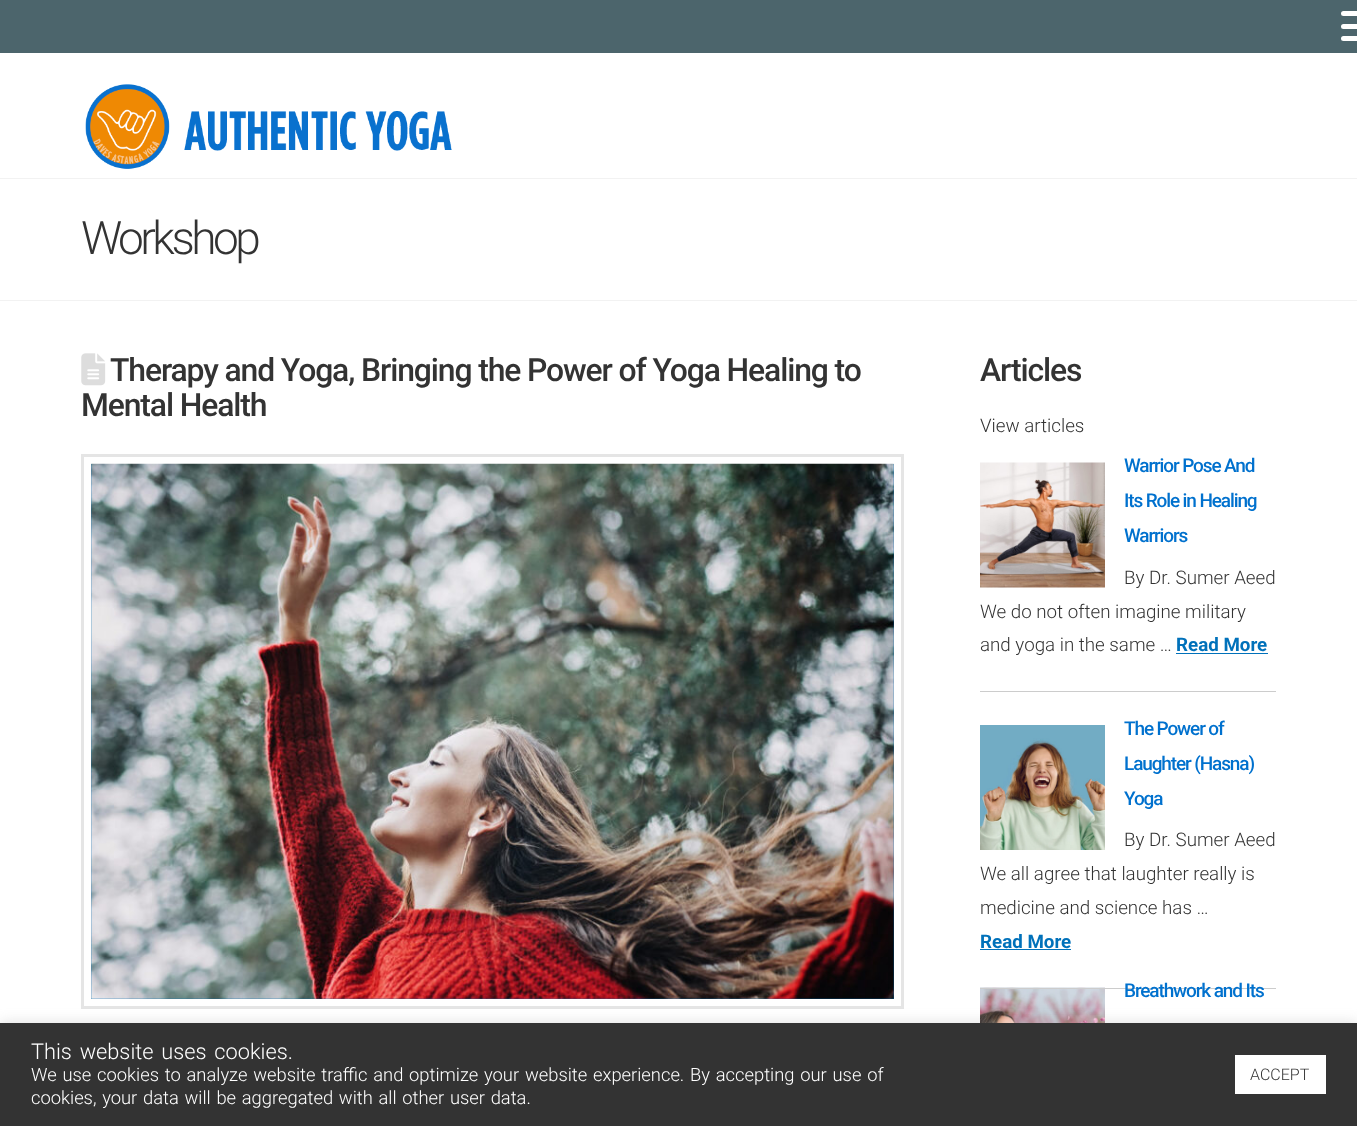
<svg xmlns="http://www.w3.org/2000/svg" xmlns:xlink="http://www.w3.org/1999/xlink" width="1357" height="1126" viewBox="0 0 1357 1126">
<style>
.cls-1{font:300 46px Roboto;letter-spacing:-3.5px;fill:#333333}
.cls-2{font:500 31.9px Roboto;letter-spacing:-1.12px;fill:#333333}
.cls-3{font:300 18.75px Roboto;fill:#333333}
.cls-4{font:500 19px Roboto;letter-spacing:-1.12px;fill:#0071ce}
.cls-5{font:bold 18.75px Roboto;fill:#0071ba}
.cls-6{font:300 21.75px Roboto;fill:#ffffff}
.cls-7{font:300 18.35px Roboto;fill:#ffffff}
.cls-8{font:300 16px Roboto;fill:#333333}
</style>
<rect width="100%" height="100%" fill="#ffffff"/>
<rect fill="#4c656c" x="0" y="0" width="1357" height="53"/>
<rect fill="#ffffff" x="1341" y="11" width="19" height="5" rx="2.5"/>
<rect fill="#ffffff" x="1341" y="24" width="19" height="5" rx="2.5"/>
<rect fill="#ffffff" x="1341" y="36" width="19" height="5" rx="2.5"/>
<image xlink:href="image0.png" x="85" y="84" width="367" height="85"/>
<rect fill="#f2f2f2" x="0" y="178" width="1357" height="1"/>
<rect fill="#f2f2f2" x="0" y="300" width="1357" height="1"/>
<image xlink:href="image1.png" x="81" y="353" width="25" height="33"/>
<rect fill="none" stroke="#e5e5e5" stroke-width="3" x="82.5" y="455.5" width="820" height="552"/>
<rect fill="#0071ba" x="91" y="464" width="803" height="535"/>
<image xlink:href="image2.png" x="91" y="463" width="803" height="536"/>
<rect fill="#0071ba" x="1176" y="653" width="92" height="1"/>
<rect fill="#cccccc" x="980" y="691" width="296" height="1"/>
<image xlink:href="image3.png" x="980" y="462" width="125" height="126"/>
<rect fill="#0071ba" x="980" y="949" width="91" height="1"/>
<image xlink:href="image5.png" x="980" y="987" width="125" height="36"/>
<rect fill="#cccccc" x="980" y="988" width="296" height="1"/>
<image xlink:href="image4.png" x="980" y="725" width="125" height="125"/>
<rect fill="#acabab" fill-opacity="0.3" filter="blur(6px)" x="0" y="1021" width="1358" height="104"/>
<rect fill="#333333" x="0" y="1023" width="1357" height="103"/>
<rect fill="#ffffff" x="1235" y="1055" width="91" height="39"/>
<text class="cls-1" x="81" y="254">Workshop</text>
<text class="cls-2" x="110" y="381">Therapy and Yoga, Bringing the Power of Yoga Healing to</text>
<text class="cls-2" x="81" y="416">Mental Health</text>
<text class="cls-2" x="980" y="381">Articles</text>
<text class="cls-3" x="980" y="432">View articles</text>
<text class="cls-4"><tspan x="1124" y="472">Warrior Pose And</tspan><tspan x="1124" y="507">Its Role in Healing</tspan><tspan x="1124" y="542">Warriors</tspan></text>
<text class="cls-3" x="1124" y="584">By Dr. Sumer Aeed</text>
<text class="cls-3"><tspan x="980" y="618">We do not often imagine military</tspan><tspan x="980" y="651">and yoga in the same …</tspan></text>
<text class="cls-5" x="1176" y="651">Read More</text>
<text class="cls-4"><tspan x="1124" y="735">The Power of</tspan><tspan x="1124" y="770">Laughter (Hasna)</tspan><tspan x="1124" y="805">Yoga</tspan></text>
<text class="cls-3" x="1124" y="846">By Dr. Sumer Aeed</text>
<text class="cls-3"><tspan x="980" y="880">We all agree that laughter really is</tspan><tspan x="980" y="914">medicine and science has …</tspan></text>
<text class="cls-5" x="980" y="948">Read More</text>
<text class="cls-4" x="1124" y="997">Breathwork and Its</text>
<text class="cls-6" x="31" y="1059" word-spacing="2.5">This website uses cookies.</text>
<text class="cls-7"><tspan x="31" y="1081" word-spacing="1.3">We use cookies to analyze website traffic and optimize your website experience. By accepting our use of</tspan><tspan x="31" y="1104" word-spacing="1.25">cookies, your data will be aggregated with all other user data.</tspan></text>
<text class="cls-8" x="1250" y="1080">ACCEPT</text>
</svg>
